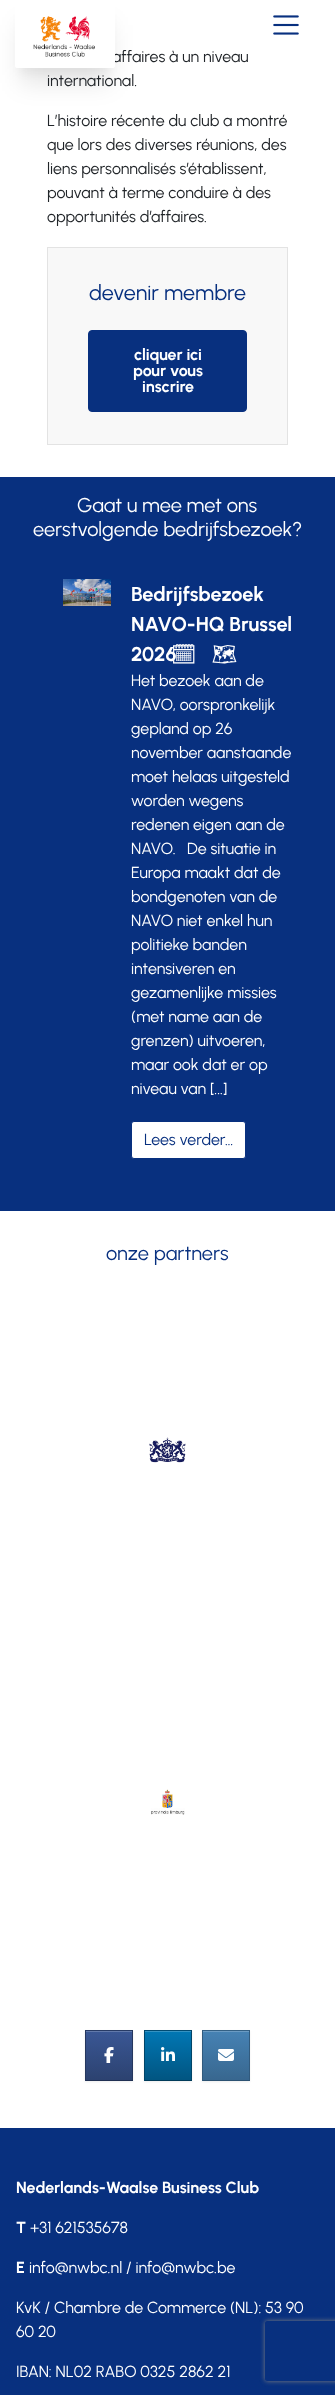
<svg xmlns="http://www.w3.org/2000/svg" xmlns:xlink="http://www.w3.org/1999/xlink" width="335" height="2395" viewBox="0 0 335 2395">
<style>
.cls-1{font:16px Urbanist;fill:#212529}
.cls-2{font:21.5px Urbanist;fill:#08307f}
.cls-3{font:bold 16px Urbanist;fill:#ffffff}
.cls-4{font:20px Urbanist;fill:#ffffff}
.cls-5{font:bold 20px Urbanist;fill:#ffffff}
.cls-6{font:bold 20px Noto Emoji;fill:#ffffff}
.cls-7{font:16px Urbanist;fill:#ffffff}
.cls-8{font:16px Urbanist;fill:#08307f}
.cls-9{font:20px Urbanist;fill:#08307f}
</style>
<defs>
<linearGradient id="g1" gradientUnits="userSpaceOnUse" x1="86" y1="2080" x2="86" y2="2031"><stop offset="0" stop-color="#2c4270"/><stop offset="1" stop-color="#3a5795"/></linearGradient>
<linearGradient id="g2" gradientUnits="userSpaceOnUse" x1="145" y1="2080" x2="145" y2="2031"><stop offset="0" stop-color="#015581"/><stop offset="1" stop-color="#0177b4"/></linearGradient>
<linearGradient id="g3" gradientUnits="userSpaceOnUse" x1="203" y1="2080" x2="203" y2="2031"><stop offset="0" stop-color="#38678f"/><stop offset="1" stop-color="#4682b4"/></linearGradient>
<clipPath id="clip1"><path d="M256 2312H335V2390H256ZM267 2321H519C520 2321 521 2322 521 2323V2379C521 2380 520 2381 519 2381H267C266 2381 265 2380 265 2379V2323C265 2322 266 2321 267 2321Z" clip-rule="evenodd"/></clipPath>
</defs>
<rect width="100%" height="100%" fill="#ffffff"/>
<image xlink:href="image1.png" x="273" y="15" width="26" height="20"/>
<rect fill="#f8f8f8" stroke="#e3e3e3" x="47.5" y="247.5" width="240" height="197"/>
<rect fill="#08307f" stroke="#08307f" x="88.5" y="330.5" width="158" height="81" rx="3.5"/>
<rect fill="#08307f" x="0" y="477" width="335" height="734"/>
<image xlink:href="image2.png" x="63" y="579" width="48" height="27"/>
<rect fill="#ffffff" stroke="#08307f" x="131.5" y="1121.5" width="114" height="37" rx="2.5"/>
<image xlink:href="image3.png" x="149" y="1437" width="37" height="26"/>
<image xlink:href="image4.png" x="151" y="1789" width="34" height="26"/>
<rect fill="#000000" fill-opacity="0.07" filter="blur(1px)" x="85" y="2031" width="48" height="51"/>
<rect fill="url(#g1)" x="86" y="2032" width="46" height="48"/>
<rect fill="#6179aa" x="86" y="2031" width="46" height="1"/>
<rect fill="#273b65" x="85" y="2030" width="48" height="1"/>
<rect fill="#25375e" x="132" y="2030" width="1" height="51"/>
<rect fill="#203053" x="85" y="2080" width="48" height="1"/>
<rect fill="#25375e" x="85" y="2030" width="1" height="51"/>
<image xlink:href="image5.png" x="104" y="2047" width="10" height="16"/>
<rect fill="#000000" fill-opacity="0.07" filter="blur(1px)" x="144" y="2031" width="48" height="51"/>
<rect fill="url(#g2)" x="145" y="2032" width="46" height="48"/>
<rect fill="#3492c2" x="145" y="2031" width="46" height="1"/>
<rect fill="#014b72" x="144" y="2030" width="48" height="1"/>
<rect fill="#014568" x="191" y="2030" width="1" height="51"/>
<rect fill="#003b59" x="144" y="2080" width="48" height="1"/>
<rect fill="#014568" x="144" y="2030" width="1" height="51"/>
<image xlink:href="image6.png" x="161" y="2047" width="14" height="14"/>
<rect fill="#000000" fill-opacity="0.07" filter="blur(1px)" x="202" y="2031" width="48" height="51"/>
<rect fill="url(#g3)" x="203" y="2032" width="46" height="48"/>
<rect fill="#6b9bc3" x="203" y="2031" width="46" height="1"/>
<rect fill="#336084" x="202" y="2030" width="48" height="1"/>
<rect fill="#315a7d" x="249" y="2030" width="1" height="51"/>
<rect fill="#2c5272" x="202" y="2080" width="48" height="1"/>
<rect fill="#315a7d" x="202" y="2030" width="1" height="51"/>
<image xlink:href="image7.png" x="218" y="2049" width="16" height="12"/>
<rect fill="#08307f" x="0" y="2128" width="335" height="267"/>
<g clip-path="url(#clip1)">
<rect fill="#808080" filter="blur(2.5px)" x="265" y="2321" width="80" height="60" rx="2"/>
</g>
<text class="cls-1" x="112" y="62">affaires à un niveau</text>
<rect fill="#ffffff" x="123" y="49" width="8" height="1"/>
<rect fill="#000000" fill-opacity="0.1" filter="blur(12.5px)" x="20" y="25" width="90" height="58"/>
<rect fill="#000000" fill-opacity="0.04" filter="blur(5px)" x="20" y="15" width="90" height="58"/>
<rect fill="#ffffff" x="15" y="0" width="100" height="68" rx="2"/>
<image xlink:href="image0.png" x="33" y="16" width="62" height="41"/>
<text class="cls-1" x="47" y="86">international.</text>
<text class="cls-1"><tspan x="47" y="126">L’histoire récente du club a montré</tspan><tspan x="47" y="150">que lors des diverses réunions, des</tspan><tspan x="47" y="174">liens personnalisés s’établissent,</tspan><tspan x="47" y="198">pouvant à terme conduire à des</tspan><tspan x="47" y="222">opportunités d’affaires.</tspan></text>
<text class="cls-2" x="89" y="300">devenir membre</text>
<text class="cls-3" x="134" y="360">cliquer ici</text>
<text class="cls-3" x="133" y="376">pour vous</text>
<text class="cls-3" x="142" y="392">inscrire</text>
<text class="cls-4" x="77" y="512">Gaat u mee met ons</text>
<text class="cls-4" x="33" y="536">eerstvolgende bedrijfsbezoek?</text>
<text class="cls-5"><tspan x="131" y="601">Bedrijfsbezoek</tspan><tspan x="131" y="631">NAVO-HQ Brussel</tspan><tspan x="131" y="661">2026</tspan></text>
<text class="cls-6" x="171" y="661" word-spacing="-10">🗓 🗺</text>
<text class="cls-7" xml:space="preserve"><tspan x="131" y="686">Het bezoek aan de</tspan><tspan x="131" y="710">NAVO, oorspronkelijk</tspan><tspan x="131" y="734">gepland op 26</tspan><tspan x="131" y="758">november aanstaande</tspan><tspan x="131" y="782">moet helaas uitgesteld</tspan><tspan x="131" y="806">worden wegens</tspan><tspan x="131" y="830">redenen eigen aan de</tspan><tspan x="131" y="854">NAVO.   De situatie in</tspan><tspan x="131" y="878">Europa maakt dat de</tspan><tspan x="131" y="902">bondgenoten van de</tspan><tspan x="131" y="926">NAVO niet enkel hun</tspan><tspan x="131" y="950">politieke banden</tspan><tspan x="131" y="974">intensiveren en</tspan><tspan x="131" y="998">gezamenlijke missies</tspan><tspan x="131" y="1022">(met name aan de</tspan><tspan x="131" y="1046">grenzen) uitvoeren,</tspan><tspan x="131" y="1070">maar ook dat er op</tspan><tspan x="131" y="1094">niveau van [...]</tspan></text>
<text class="cls-8" x="144" y="1145">Lees verder…</text>
<text class="cls-9" x="106" y="1260">onze partners</text>
<text class="cls-3" x="16" y="2193">Nederlands-Waalse Business Club</text>
<text class="cls-3" x="16" y="2233">T</text>
<text class="cls-7" x="30" y="2233">+31 621535678</text>
<text class="cls-3" x="16" y="2273">E</text>
<text class="cls-7" x="29" y="2273">info@nwbc.nl / info@nwbc.be</text>
<text class="cls-7"><tspan x="16" y="2313">KvK / Chambre de Commerce (NL): 53 90</tspan><tspan x="16" y="2337">60 20</tspan></text>
<text class="cls-7" x="16" y="2377">IBAN: NL02 RABO 0325 2862 21</text>
</svg>
